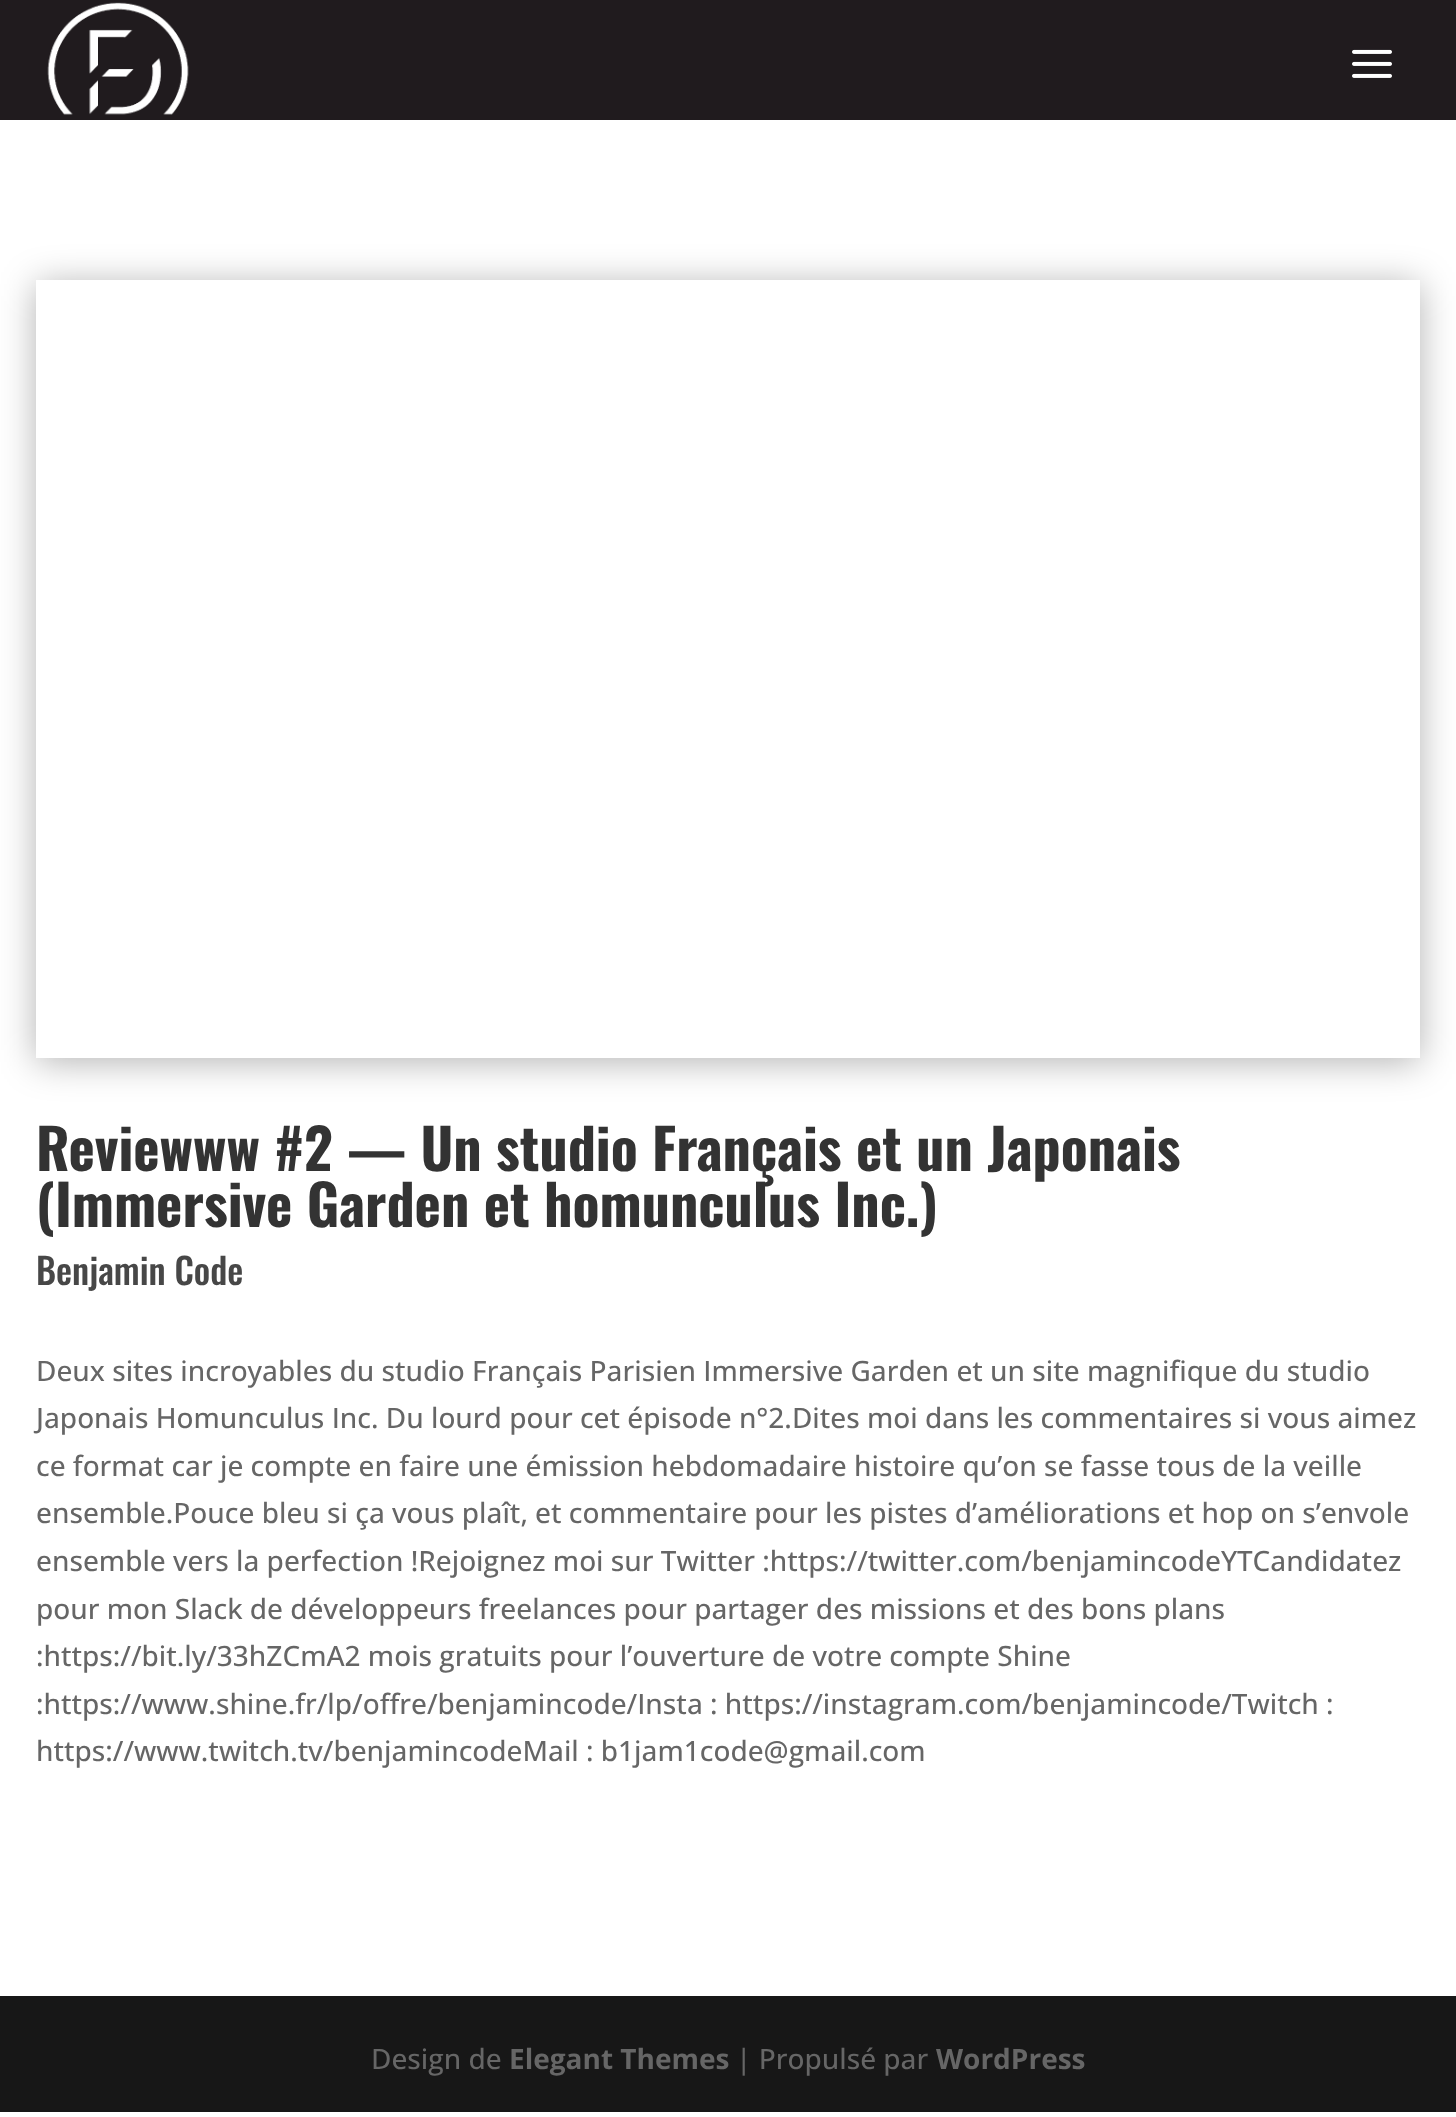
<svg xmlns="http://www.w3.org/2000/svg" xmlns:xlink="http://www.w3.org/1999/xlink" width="1456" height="2117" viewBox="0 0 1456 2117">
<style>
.cls-1{font:bold 56px Oswald;fill:#333333}
.cls-2{font:500 36px Oswald;fill:#474747}
.cls-3{font:500 28px Open Sans;fill:#666666}
.cls-4{font:bold 28px Open Sans;fill:#666666}
</style>
<defs>
<clipPath id="clip1"><path d="M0 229H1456V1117H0ZM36 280H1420V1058H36Z" clip-rule="evenodd"/></clipPath>
</defs>
<rect width="100%" height="100%" fill="#ffffff"/>
<rect fill="#201b1e" x="0" y="0" width="1456" height="120"/>
<image xlink:href="image0.png" x="47" y="2" width="142" height="113"/>
<image xlink:href="image1.png" x="1352" y="49" width="40" height="29"/>
<g clip-path="url(#clip1)">
<rect fill="#000000" fill-opacity="0.3" filter="blur(18px)" x="36" y="284" width="1384" height="778"/>
</g>
<rect fill="#171717" x="0" y="1996" width="1456" height="116"/>
<text class="cls-1"><tspan x="36" y="1171">Reviewww #2 — Un studio Français et un Japonais</tspan><tspan x="36" y="1227">(Immersive Garden et homunculus Inc.)</tspan></text>
<text class="cls-2" x="36" y="1285">Benjamin Code</text>
<text class="cls-3"><tspan x="36" y="1381">Deux sites incroyables du studio Français Parisien Immersive Garden et un site magnifique du studio</tspan><tspan x="36" y="1428">Japonais Homunculus Inc. Du lourd pour cet épisode n°2.Dites moi dans les commentaires si vous aimez</tspan><tspan x="36" y="1476">ce format car je compte en faire une émission hebdomadaire histoire qu’on se fasse tous de la veille</tspan><tspan x="36" y="1523">ensemble.Pouce bleu si ça vous plaît, et commentaire pour les pistes d’améliorations et hop on s’envole</tspan><tspan x="36" y="1571">ensemble vers la perfection !Rejoignez moi sur Twitter :https://twitter.com/benjamincodeYTCandidatez</tspan><tspan x="36" y="1619">pour mon Slack de développeurs freelances pour partager des missions et des bons plans</tspan><tspan x="36" y="1666">:https://bit.ly/33hZCmA2 mois gratuits pour l’ouverture de votre compte Shine</tspan><tspan x="36" y="1714">:https://www.shine.fr/lp/offre/benjamincode/Insta : https://instagram.com/benjamincode/Twitch :</tspan><tspan x="36" y="1761">https://www.twitch.tv/benjamincodeMail : b1jam1code@gmail.com</tspan></text>
<text class="cls-3" x="371" y="2069">Design de</text>
<text class="cls-4" x="509" y="2069">Elegant Themes</text>
<text class="cls-3" x="736" y="2069">| Propulsé par</text>
<text class="cls-4" x="936" y="2069">WordPress</text>
</svg>
